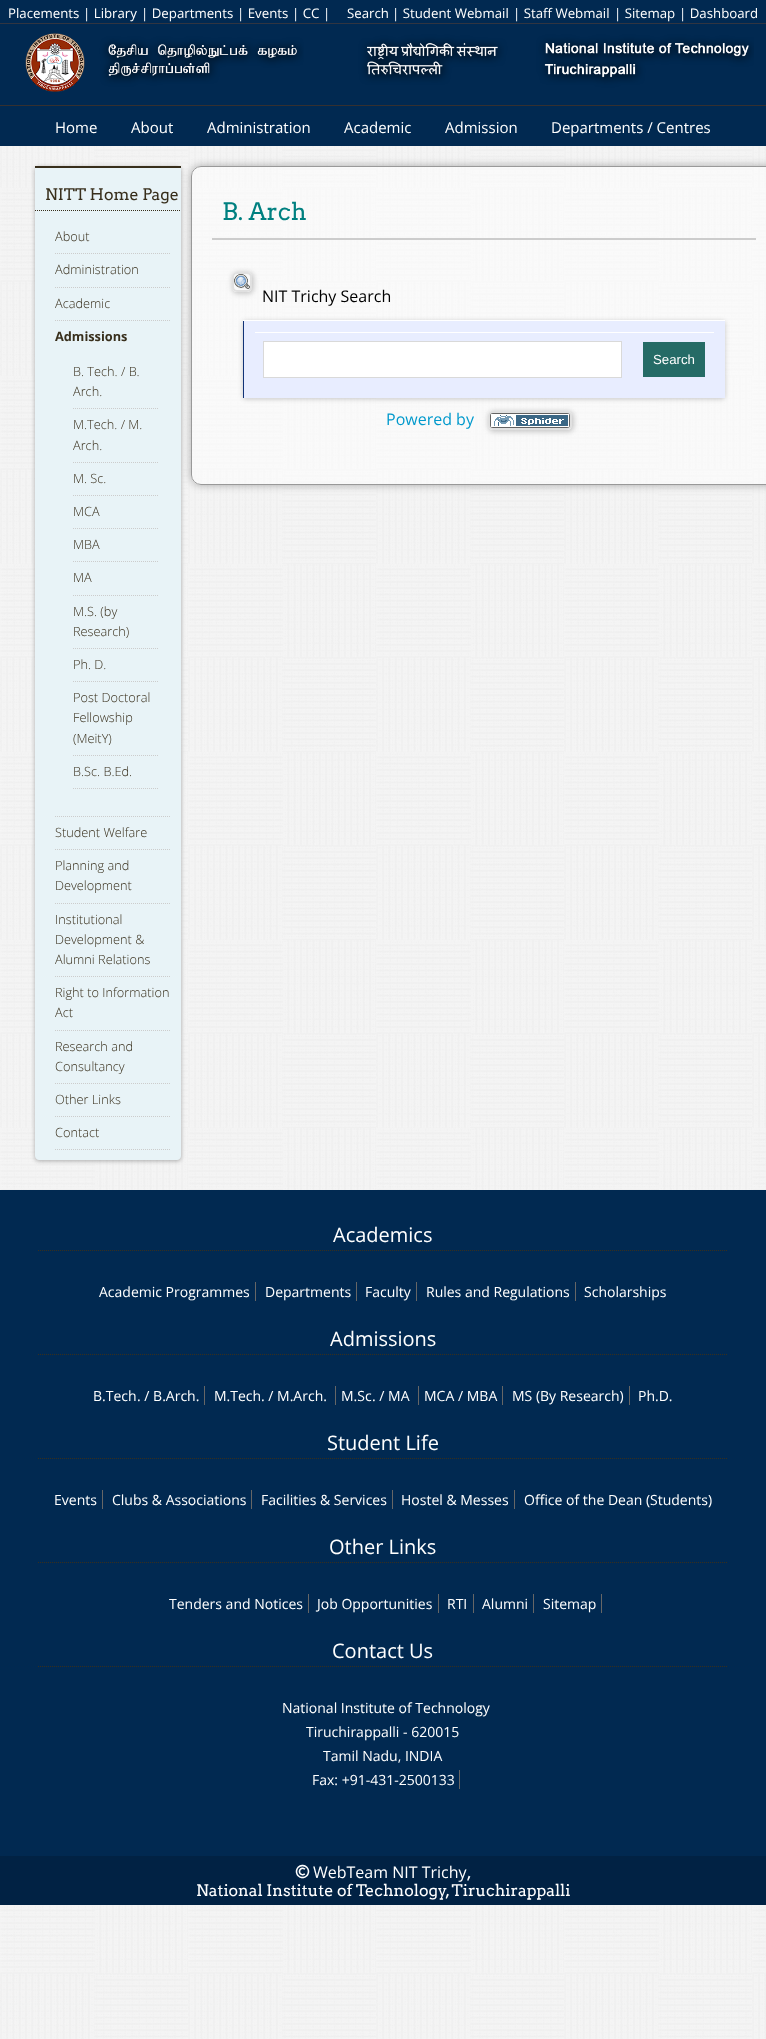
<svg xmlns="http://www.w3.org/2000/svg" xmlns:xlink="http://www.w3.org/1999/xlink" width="766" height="2039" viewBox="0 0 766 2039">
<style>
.cls-1{font:13.25px Open Sans;fill:#ffffff}
.cls-2{font:15px Open Sans;fill:#ffffff}
.cls-3{font:16px Arvo;fill:#382f1c}
.cls-4{font:300 12.75px Open Sans;fill:#382f1c}
.cls-5{font:bold 12.75px Open Sans;fill:#382f1c}
.cls-6{font:24px Arvo;fill:#008080}
.cls-7{font:16px Open Sans;fill:#000000}
.cls-8{font:13.25px Liberation Sans;fill:#ffffff}
.cls-9{font:16px Open Sans;fill:#0099cc}
.cls-10{font:20px Open Sans;fill:#ffffff}
.cls-11{font:14px Open Sans;fill:#ffffff}
.cls-12{font:16px Arvo;fill:#ffffff}
.cls-13{font:16px Open Sans;fill:#ffffff}
</style>
<defs>
<clipPath id="clip1"><path d="M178 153H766V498H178ZM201 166H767C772.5 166 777 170.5 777 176V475C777 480.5 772.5 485 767 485H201C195.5 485 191 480.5 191 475V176C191 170.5 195.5 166 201 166Z" clip-rule="evenodd"/></clipPath>
<clipPath id="clip2"><path d="M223 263H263V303H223ZM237 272H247C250 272 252 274 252 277V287C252 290 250 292 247 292H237C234 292 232 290 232 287V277C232 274 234 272 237 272Z" clip-rule="evenodd"/></clipPath>
<clipPath id="clip3"><path d="M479 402H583V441H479ZM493 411H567C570 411 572 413 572 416V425C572 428 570 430 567 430H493C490 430 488 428 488 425V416C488 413 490 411 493 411Z" clip-rule="evenodd"/></clipPath>
</defs>
<rect width="100%" height="100%" fill="#ffffff"/>
<image xlink:href="image0.png" x="0" y="146" width="766" height="1893"/>
<rect fill="#012951" x="0" y="0" width="766" height="23"/>
<rect fill="#313541" x="0" y="23" width="766" height="1"/>
<rect fill="#012951" x="0" y="24" width="766" height="81"/>
<rect fill="#353030" x="0" y="105" width="766" height="1"/>
<image xlink:href="image1.png" x="25" y="33" width="729" height="59"/>
<rect fill="#012951" x="0" y="106" width="766" height="40"/>
<rect fill="#000000" fill-opacity="0.3" filter="blur(2px)" x="35" y="167" width="146" height="994" rx="4"/>
<path fill="#e8f3f7" d="M35 166H181V1156C181 1158 179 1160 177 1160H39C37 1160 35 1158 35 1156Z"/>
<rect fill="#382f1c" x="35" y="166" width="146" height="2"/>
<path fill="none" stroke="#382f1c" stroke-dasharray="1 1" d="M35 210.5H181"/>
<path fill="none" stroke="#cccccc" stroke-dasharray="1 1" d="M55 253.5H171"/>
<path fill="none" stroke="#cccccc" stroke-dasharray="1 1" d="M55 287.5H171"/>
<path fill="none" stroke="#cccccc" stroke-dasharray="1 1" d="M55 320.5H171"/>
<path fill="none" stroke="#cccccc" stroke-dasharray="1 1" d="M55 816.5H171"/>
<path fill="none" stroke="#cccccc" stroke-dasharray="1 1" d="M73 408.5H159"/>
<path fill="none" stroke="#cccccc" stroke-dasharray="1 1" d="M73 462.5H159"/>
<path fill="none" stroke="#cccccc" stroke-dasharray="1 1" d="M73 495.5H159"/>
<path fill="none" stroke="#cccccc" stroke-dasharray="1 1" d="M73 528.5H159"/>
<path fill="none" stroke="#cccccc" stroke-dasharray="1 1" d="M73 561.5H159"/>
<path fill="none" stroke="#cccccc" stroke-dasharray="1 1" d="M73 595.5H159"/>
<path fill="none" stroke="#cccccc" stroke-dasharray="1 1" d="M73 648.5H159"/>
<path fill="none" stroke="#cccccc" stroke-dasharray="1 1" d="M73 681.5H159"/>
<path fill="none" stroke="#cccccc" stroke-dasharray="1 1" d="M73 755.5H159"/>
<path fill="none" stroke="#cccccc" stroke-dasharray="1 1" d="M73 788.5H159"/>
<path fill="none" stroke="#cccccc" stroke-dasharray="1 1" d="M55 849.5H171"/>
<path fill="none" stroke="#cccccc" stroke-dasharray="1 1" d="M55 903.5H171"/>
<path fill="none" stroke="#cccccc" stroke-dasharray="1 1" d="M55 976.5H171"/>
<path fill="none" stroke="#cccccc" stroke-dasharray="1 1" d="M55 1030.5H171"/>
<path fill="none" stroke="#cccccc" stroke-dasharray="1 1" d="M55 1083.5H171"/>
<path fill="none" stroke="#cccccc" stroke-dasharray="1 1" d="M55 1116.5H171"/>
<path fill="none" stroke="#cccccc" stroke-dasharray="1 1" d="M55 1149.5H171"/>
<g clip-path="url(#clip1)">
<rect fill="#000000" fill-opacity="0.3" filter="blur(4px)" x="191" y="166" width="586" height="319" rx="10"/>
</g>
<path fill="#ffffff" fill-opacity="0.5" d="M201 166H766V485H201C195.5 485 191 480.5 191 475V176C191 170.5 195.5 166 201 166Z"/>
<rect fill="none" stroke="#999999" x="191.5" y="166.5" width="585" height="318" rx="9.5"/>
<rect fill="#cccccc" x="212" y="238" width="544" height="2"/>
<g clip-path="url(#clip2)">
<rect fill="#c8c8c8" filter="blur(2.5px)" x="232" y="272" width="22" height="22" rx="6"/>
</g>
<rect fill="none" stroke="#c8c8c8" stroke-opacity="0.5" stroke-width="2" x="233" y="273" width="18" height="18" rx="4"/>
<image xlink:href="image2.png" x="234" y="274" width="16" height="15"/>
<rect fill="#000000" fill-opacity="0.2" filter="blur(2.5px)" x="243" y="321" width="482" height="78" rx="3"/>
<rect fill="#113377" x="243" y="320" width="1" height="78"/>
<rect fill="#ffffff" x="243" y="320" width="482" height="1"/>
<rect fill="#e8edff" x="244" y="321" width="481" height="77"/>
<rect fill="#ffffff" stroke="#d9d9d9" x="263.5" y="341.5" width="358" height="36"/>
<rect fill="#ffffff" x="255" y="332" width="459" height="1"/>
<rect fill="#256b66" x="643" y="342" width="62" height="35"/>
<g clip-path="url(#clip3)">
<rect fill="#c8c8c8" filter="blur(2.5px)" x="488" y="411" width="86" height="21" rx="6"/>
</g>
<rect fill="none" stroke="#c8c8c8" stroke-opacity="0.5" stroke-width="2" x="489" y="412" width="82" height="17" rx="4"/>
<image xlink:href="image3.png" x="490" y="413" width="80" height="15"/>
<rect fill="#012951" x="0" y="1190" width="766" height="666"/>
<path fill="none" stroke="#382f1c" stroke-dasharray="1 1" d="M38 1250.5H728"/>
<rect fill="#666666" x="255" y="1282" width="1" height="19"/>
<rect fill="#666666" x="356" y="1282" width="1" height="19"/>
<rect fill="#666666" x="416" y="1282" width="1" height="19"/>
<rect fill="#666666" x="575" y="1282" width="1" height="19"/>
<path fill="none" stroke="#382f1c" stroke-dasharray="1 1" d="M38 1354.5H728"/>
<rect fill="#666666" x="204" y="1386" width="1" height="19"/>
<rect fill="#666666" x="335" y="1386" width="1" height="19"/>
<rect fill="#666666" x="418" y="1386" width="1" height="19"/>
<rect fill="#666666" x="502" y="1386" width="1" height="19"/>
<rect fill="#666666" x="629" y="1386" width="1" height="19"/>
<path fill="none" stroke="#382f1c" stroke-dasharray="1 1" d="M38 1458.5H728"/>
<rect fill="#666666" x="102" y="1490" width="1" height="19"/>
<rect fill="#666666" x="251" y="1490" width="1" height="19"/>
<rect fill="#666666" x="392" y="1490" width="1" height="19"/>
<rect fill="#666666" x="514" y="1490" width="1" height="19"/>
<path fill="none" stroke="#382f1c" stroke-dasharray="1 1" d="M38 1562.5H728"/>
<rect fill="#666666" x="308" y="1594" width="1" height="19"/>
<rect fill="#666666" x="438" y="1594" width="1" height="19"/>
<rect fill="#666666" x="473" y="1594" width="1" height="19"/>
<rect fill="#666666" x="533" y="1594" width="1" height="19"/>
<rect fill="#666666" x="601" y="1594" width="1" height="19"/>
<path fill="none" stroke="#382f1c" stroke-dasharray="1 1" d="M38 1666.5H728"/>
<rect fill="#666666" x="459" y="1770" width="1" height="19"/>
<rect fill="#012244" x="0" y="1856" width="766" height="49"/>
<text class="cls-1" x="8" y="18">Placements</text>
<text class="cls-1" x="83" y="18">| Library</text>
<text class="cls-1" x="141" y="18">| Departments</text>
<text class="cls-1" x="237" y="18">| Events</text>
<text class="cls-1" x="292" y="18">| CC</text>
<text class="cls-1" x="323" y="18">|</text>
<text class="cls-1" x="347" y="18">Search</text>
<text class="cls-1" x="392" y="18">| Student Webmail</text>
<text class="cls-1" x="513" y="18">| Staff Webmail</text>
<text class="cls-1" x="614" y="18">| Sitemap</text>
<text class="cls-1" x="679" y="18">| Dashboard</text>
<text class="cls-2" x="55" y="133">Home</text>
<text class="cls-2" x="131" y="133">About</text>
<text class="cls-2" x="207" y="133">Administration</text>
<text class="cls-2" x="344" y="133">Academic</text>
<text class="cls-2" x="445" y="133">Admission</text>
<text class="cls-2" x="551" y="133">Departments / Centres</text>
<text class="cls-3" x="45" y="200">NITT Home Page</text>
<text class="cls-4" x="55" y="241">About</text>
<text class="cls-4" x="55" y="274">Administration</text>
<text class="cls-4" x="55" y="308">Academic</text>
<text class="cls-5" x="55" y="341">Admissions</text>
<text class="cls-4"><tspan x="73" y="376">B. Tech. / B.</tspan><tspan x="73" y="396">Arch.</tspan></text>
<text class="cls-4"><tspan x="73" y="429">M.Tech. / M.</tspan><tspan x="73" y="450">Arch.</tspan></text>
<text class="cls-4" x="73" y="483">M. Sc.</text>
<text class="cls-4" x="73" y="516">MCA</text>
<text class="cls-4" x="73" y="549">MBA</text>
<text class="cls-4" x="73" y="582">MA</text>
<text class="cls-4"><tspan x="73" y="616">M.S. (by</tspan><tspan x="73" y="636">Research)</tspan></text>
<text class="cls-4" x="73" y="669">Ph. D.</text>
<text class="cls-4"><tspan x="73" y="702">Post Doctoral</tspan><tspan x="73" y="722">Fellowship</tspan><tspan x="73" y="743">(MeitY)</tspan></text>
<text class="cls-4" x="73" y="776">B.Sc. B.Ed.</text>
<text class="cls-4" x="55" y="837">Student Welfare</text>
<text class="cls-4"><tspan x="55" y="870">Planning and</tspan><tspan x="55" y="890">Development</tspan></text>
<text class="cls-4"><tspan x="55" y="924">Institutional</tspan><tspan x="55" y="944">Development &amp;</tspan><tspan x="55" y="964">Alumni Relations</tspan></text>
<text class="cls-4"><tspan x="55" y="997">Right to Information</tspan><tspan x="55" y="1017">Act</tspan></text>
<text class="cls-4"><tspan x="55" y="1051">Research and</tspan><tspan x="55" y="1071">Consultancy</tspan></text>
<text class="cls-4" x="55" y="1104">Other Links</text>
<text class="cls-4" x="55" y="1137">Contact</text>
<text class="cls-6" x="222" y="220">B. Arch</text>
<text class="cls-7" x="262" y="302">NIT Trichy Search</text>
<text class="cls-8" x="653" y="364">Search</text>
<text class="cls-9" x="386" y="425">Powered by</text>
<text class="cls-10" x="333" y="1242">Academics</text>
<text class="cls-11" x="99" y="1297">Academic Programmes</text>
<text class="cls-11" x="265" y="1297">Departments</text>
<text class="cls-11" x="365" y="1297">Faculty</text>
<text class="cls-11" x="426" y="1297">Rules and Regulations</text>
<text class="cls-11" x="584" y="1297">Scholarships</text>
<text class="cls-10" x="330" y="1346">Admissions</text>
<text class="cls-11" x="93" y="1401">B.Tech</text>
<text class="cls-11" x="137" y="1401">. / B.Arch.</text>
<text class="cls-11" x="214" y="1401">M.Tech</text>
<text class="cls-11" x="261" y="1401">. / M.Arch.</text>
<text class="cls-11" x="341" y="1401">M.Sc</text>
<text class="cls-11" x="372" y="1401">. / MA</text>
<text class="cls-11" x="424" y="1401">MCA</text>
<text class="cls-11" x="458" y="1401">/ MBA</text>
<text class="cls-11" x="512" y="1401">MS (By Research)</text>
<text class="cls-11" x="638" y="1401">Ph.D.</text>
<text class="cls-10" x="327" y="1450">Student Life</text>
<text class="cls-11" x="54" y="1505">Events</text>
<text class="cls-11" x="112" y="1505">Clubs &amp; Associations</text>
<text class="cls-11" x="261" y="1505">Facilities &amp; Services</text>
<text class="cls-11" x="401" y="1505">Hostel &amp; Messes</text>
<text class="cls-11" x="524" y="1505">Office of the Dean (Students)</text>
<text class="cls-10" x="329" y="1554">Other Links</text>
<text class="cls-11" x="169" y="1609">Tenders and Notices</text>
<text class="cls-11" x="317" y="1609">Job Opportunities</text>
<text class="cls-11" x="447" y="1609">RTI</text>
<text class="cls-11" x="482" y="1609">Alumni</text>
<text class="cls-11" x="543" y="1609">Sitemap</text>
<text class="cls-10" x="332" y="1658">Contact Us</text>
<text class="cls-11" x="282" y="1713">National Institute of Technology</text>
<text class="cls-11" x="306" y="1737">Tiruchirappalli - 620015</text>
<text class="cls-11" x="323" y="1761">Tamil Nadu, INDIA</text>
<text class="cls-11" x="312" y="1785">Fax: +91-431-2500133</text>
<text class="cls-12" x="295" y="1878">©</text>
<text class="cls-12" x="467" y="1878">,</text>
<text class="cls-13" x="313" y="1878">WebTeam NIT Trichy</text>
<text class="cls-12" x="196" y="1896">National Institute of Technology, Tiruchirappalli</text>
</svg>
